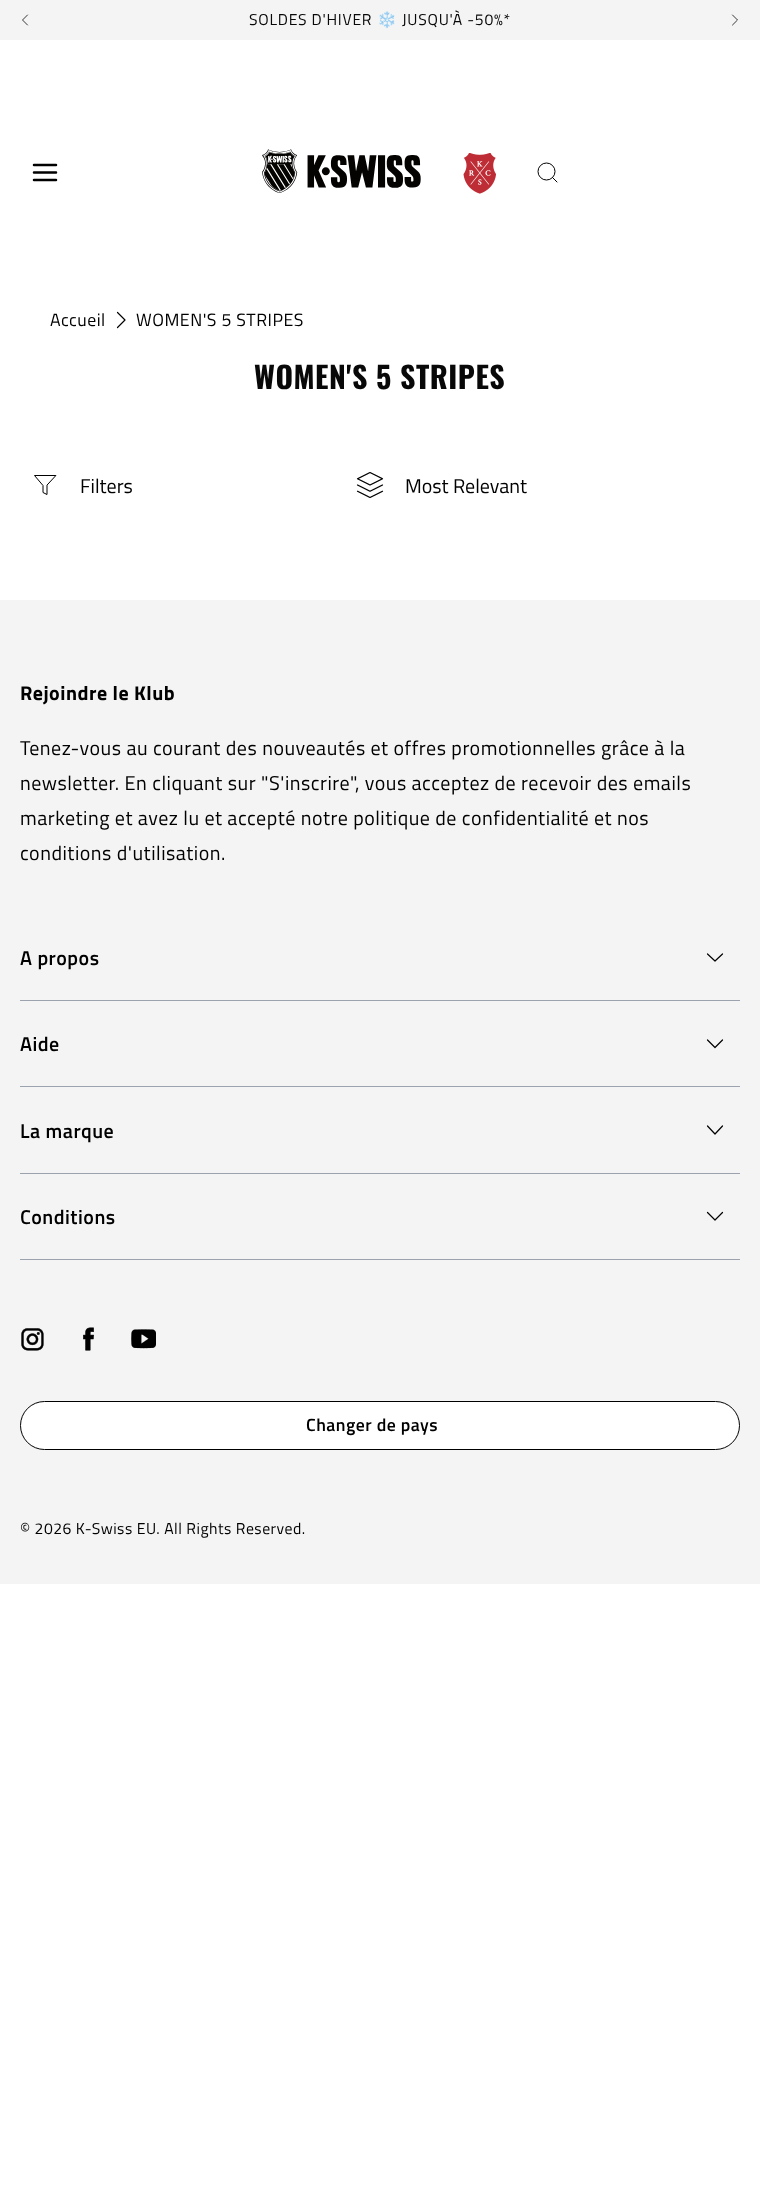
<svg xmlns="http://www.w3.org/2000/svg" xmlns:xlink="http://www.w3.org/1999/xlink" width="760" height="2192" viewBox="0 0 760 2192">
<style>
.cls-1{font:15.75px Titillium Web;letter-spacing:0.75px;fill:#080808}
.cls-2{font:15.75px Noto Color Emoji;letter-spacing:0.75px;fill:#080808}
.cls-3{font:17.75px Titillium Web;letter-spacing:0.5px;fill:#000000}
.cls-4{font:bold 30px Oswald;letter-spacing:0.5px;fill:#080808}
.cls-5{font:20px Titillium Web;fill:#000000}
.cls-6{font:bold 20px Titillium Web;letter-spacing:0.5px;fill:#000000}
.cls-7{font:20px Titillium Web;letter-spacing:0.5px;fill:#000000}
.cls-8{font:600 20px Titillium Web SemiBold;letter-spacing:0.5px;fill:#000000}
.cls-9{font:600 17.75px Titillium Web SemiBold;letter-spacing:0.5px;fill:#000000}
.cls-10{font:15.75px Titillium Web;letter-spacing:0.5px;fill:#000000}
</style>
<rect width="100%" height="100%" fill="#ffffff"/>
<rect fill="#f4f4f4" x="0" y="0" width="760" height="40"/>
<path fill="none" stroke="#080808" stroke-width="0.8" stroke-linecap="round" stroke-linejoin="round" d="M27.5 25L22.5 20L27.5 15"/>
<path fill="none" stroke="#080808" stroke-width="0.8" stroke-linecap="round" stroke-linejoin="round" d="M732.5 25L737.5 20L732.5 15"/>
<path fill="none" stroke="#000000" stroke-width="2.5" stroke-linecap="round" stroke-linejoin="round" d="M34 172.5H56M34 165H56M34 180H56"/>
<image xlink:href="image0.png" x="262" y="149" width="159" height="44"/>
<image xlink:href="image1.png" x="463" y="153" width="33" height="41"/>
<circle fill="none" stroke="#000000" cx="546.5" cy="171.5" r="8.5"/>
<path fill="none" stroke="#000000" stroke-linecap="round" stroke-linejoin="round" d="M557 182L552.5 177.5"/>
<path fill="none" stroke="#000000" stroke-width="1.2" stroke-linecap="round" stroke-linejoin="round" d="M117.5 327.5L125 320L117.5 312.5"/>
<path fill="none" stroke="#000000" stroke-linecap="round" stroke-linejoin="round" d="M55.5 475.5H34.5L43 485.5V492.5L47 494.5V485.5Z"/>
<image xlink:href="image2.png" x="356" y="472" width="28" height="26"/>
<rect fill="#f4f4f4" x="0" y="600" width="760" height="984"/>
<rect fill="#9ca3af" x="20" y="1000" width="720" height="1"/>
<path fill="none" stroke="#000000" stroke-width="1.2" stroke-linecap="round" stroke-linejoin="round" d="M707.5 954L715 961L722.5 954"/>
<rect fill="#9ca3af" x="20" y="1086" width="720" height="1"/>
<path fill="none" stroke="#000000" stroke-width="1.2" stroke-linecap="round" stroke-linejoin="round" d="M707.5 1040L715 1047.5L722.5 1040"/>
<rect fill="#9ca3af" x="20" y="1173" width="720" height="1"/>
<path fill="none" stroke="#000000" stroke-width="1.2" stroke-linecap="round" stroke-linejoin="round" d="M707.5 1126L715 1134L722.5 1126"/>
<rect fill="#9ca3af" x="20" y="1259" width="720" height="1"/>
<path fill="none" stroke="#000000" stroke-width="1.2" stroke-linecap="round" stroke-linejoin="round" d="M707.5 1212.5L715 1220L722.5 1212.5"/>
<image xlink:href="image3.png" x="21" y="1328" width="23" height="23"/>
<image xlink:href="image4.png" x="83" y="1327" width="11" height="24"/>
<image xlink:href="image5.png" x="131" y="1329" width="25" height="20"/>
<rect fill="#ffffff" stroke="#000000" x="20.5" y="1401.5" width="719" height="48" rx="24"/>
<text class="cls-1" x="249" y="25">SOLDES D'HIVER</text>
<text class="cls-2" x="377" y="25">❄️</text>
<text class="cls-1" x="402" y="25">JUSQU'À -50%*</text>
<text class="cls-3" x="50" y="326">Accueil</text>
<text class="cls-3" x="136" y="326">WOMEN'S 5 STRIPES</text>
<text class="cls-4" x="254" y="389">WOMEN'S 5 STRIPES</text>
<text class="cls-5" x="80" y="493">Filters</text>
<text class="cls-5" x="405" y="493">Most Relevant</text>
<text class="cls-6" x="20" y="700">Rejoindre le Klub</text>
<text class="cls-7"><tspan x="20" y="755">Tenez-vous au courant des nouveautés et offres promotionnelles grâce à la</tspan><tspan x="20" y="790">newsletter. En cliquant sur "S'inscrire", vous acceptez de recevoir des emails</tspan><tspan x="20" y="825">marketing et avez lu et accepté notre politique de confidentialité et nos</tspan><tspan x="20" y="860">conditions d'utilisation.</tspan></text>
<text class="cls-8" x="20" y="965">A propos</text>
<text class="cls-8" x="20" y="1051">Aide</text>
<text class="cls-8" x="20" y="1138">La marque</text>
<text class="cls-8" x="20" y="1224">Conditions</text>
<text class="cls-9" x="306" y="1431">Changer de pays</text>
<text class="cls-10" x="20" y="1534">© 2026 K-Swiss EU. All Rights Reserved.</text>
</svg>
